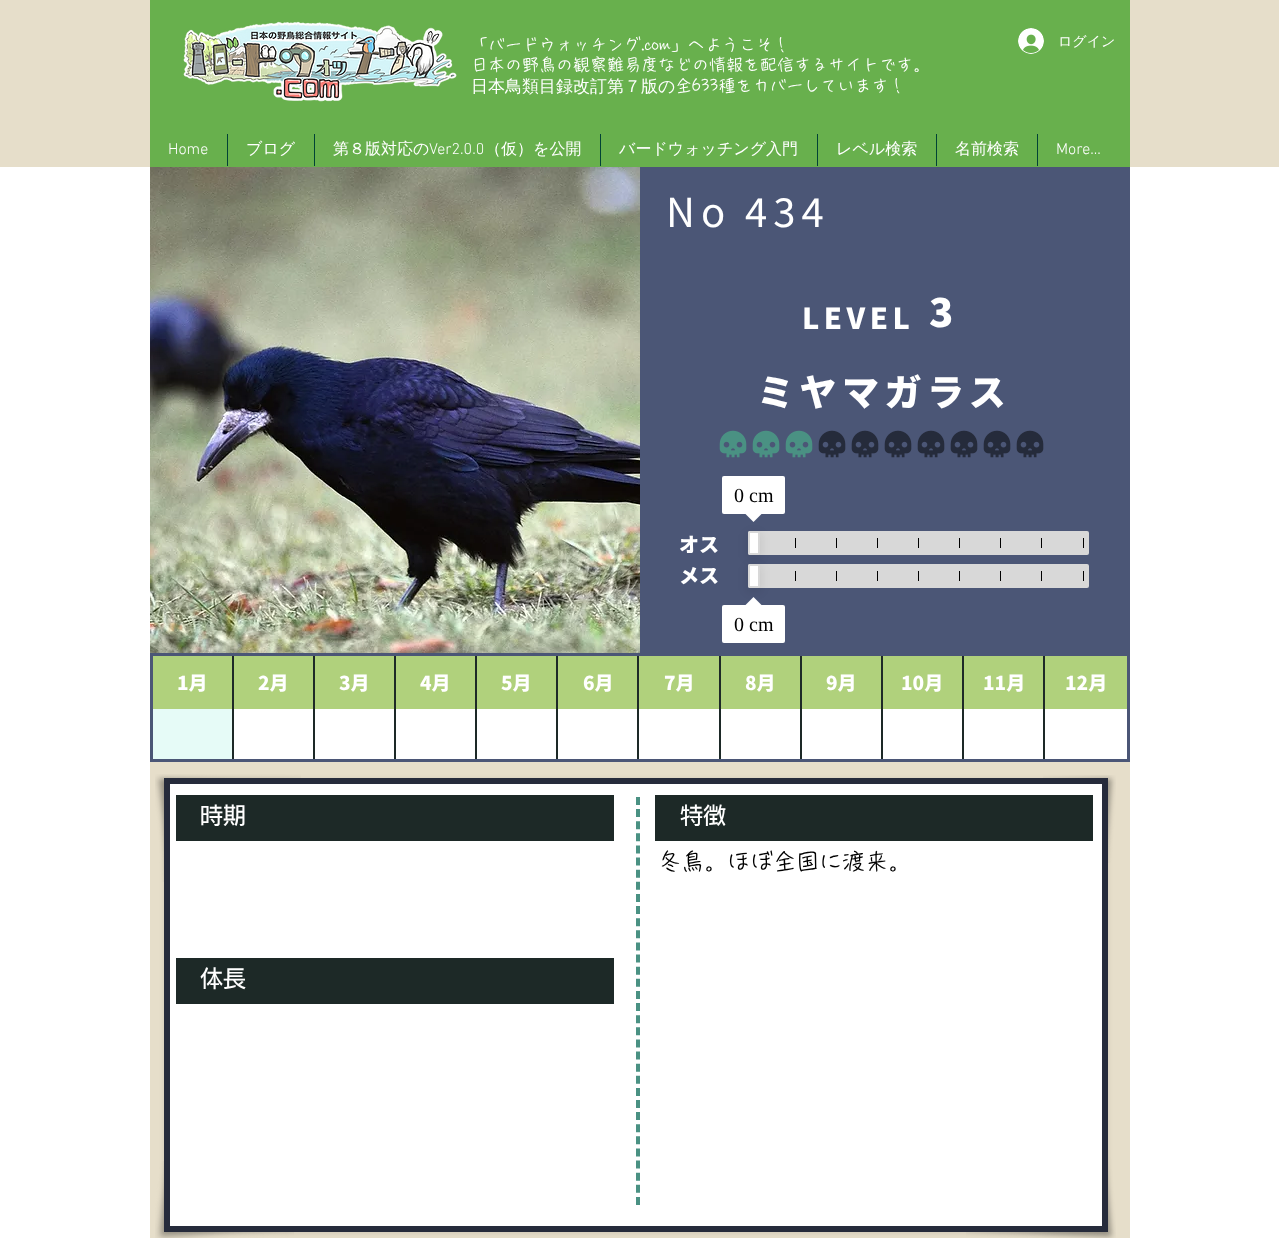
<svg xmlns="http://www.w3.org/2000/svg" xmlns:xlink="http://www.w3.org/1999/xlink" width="1279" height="1238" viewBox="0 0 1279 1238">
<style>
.cls-1{font:17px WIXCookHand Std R;fill:#ffffff}
.cls-2{font:500 17px WenQuanYi Zen Hei;fill:#ffffff}
.cls-3{font:500 14px WenQuanYi Zen Hei;fill:#ffffff}
.cls-4{font:300 16px 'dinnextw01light';fill:#ffffff}
.cls-5{font:500 16px WenQuanYi Zen Hei;fill:#ffffff}
.cls-6{font:40px Noto Sans JP;letter-spacing:6px;fill:#ffffff}
.cls-7{font:900 29px Noto Sans JP;letter-spacing:4.5px;fill:#ffffff}
.cls-8{font:900 40px Noto Sans JP;letter-spacing:6px;fill:#ffffff}
.cls-9{font:900 37px Noto Sans JP;letter-spacing:5.5px;fill:#ffffff}
.cls-10{font:20px Liberation Serif;fill:#000000}
.cls-11{font:900 20px Noto Sans JP;fill:#ffffff}
.cls-12{font:900 19px Noto Sans JP;fill:#ffffff}
.cls-13{font:500 23px 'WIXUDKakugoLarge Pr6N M';fill:#ffffff}
.cls-14{font:23px WIXCookHand Std R;fill:#000000}
</style>
<rect width="100%" height="100%" fill="#ffffff"/>
<rect fill="#e6deca" x="0" y="0" width="1279" height="167"/>
<rect fill="#68b04d" x="150" y="0" width="980" height="167"/>
<image xlink:href="image0.png" x="183" y="21" width="274" height="81"/>
<image xlink:href="image1.png" x="1018" y="28" width="26" height="26"/>
<rect fill="#014235" x="227" y="134" width="1" height="32"/>
<rect fill="#014235" x="314" y="134" width="1" height="32"/>
<rect fill="#014235" x="600" y="134" width="1" height="32"/>
<rect fill="#014235" x="817" y="134" width="1" height="32"/>
<rect fill="#014235" x="936" y="134" width="1" height="32"/>
<rect fill="#014235" x="1037" y="134" width="1" height="32"/>
<image xlink:href="image2.png" x="150" y="167" width="490" height="486"/>
<rect fill="#4b5676" x="640" y="167" width="490" height="486"/>
<image xlink:href="image3.png" x="719" y="430" width="28" height="28"/>
<image xlink:href="image3.png" x="752" y="430" width="28" height="28"/>
<image xlink:href="image3.png" x="785" y="430" width="28" height="28"/>
<image xlink:href="image4.png" x="818" y="430" width="28" height="28"/>
<image xlink:href="image4.png" x="851" y="430" width="28" height="28"/>
<image xlink:href="image4.png" x="884" y="430" width="28" height="28"/>
<image xlink:href="image4.png" x="917" y="430" width="28" height="28"/>
<image xlink:href="image4.png" x="950" y="430" width="28" height="28"/>
<image xlink:href="image4.png" x="983" y="430" width="28" height="28"/>
<image xlink:href="image4.png" x="1016" y="430" width="28" height="28"/>
<rect fill="#ffffff" x="722" y="476" width="63" height="38" rx="2"/>
<rect fill="#d8d8d8" x="748" y="531" width="341" height="24" rx="2"/>
<rect fill="#000000" fill-opacity="0.08" filter="blur(5px)" x="747" y="533" width="14" height="26" rx="3"/>
<path fill="#ffffff" d="M745.5 514H761.5L753.5 522Z"/>
<rect fill="#ffffff" stroke="#d8d8d8" stroke-width="2" x="749" y="532" width="10" height="22" rx="1"/>
<rect fill="#000000" x="795" y="538" width="1" height="10"/>
<rect fill="#000000" x="836" y="538" width="1" height="10"/>
<rect fill="#000000" x="877" y="538" width="1" height="10"/>
<rect fill="#000000" x="918" y="538" width="1" height="10"/>
<rect fill="#000000" x="959" y="538" width="1" height="10"/>
<rect fill="#000000" x="1000" y="538" width="1" height="10"/>
<rect fill="#000000" x="1041" y="538" width="1" height="10"/>
<rect fill="#000000" x="1083" y="538" width="1" height="10"/>
<rect fill="#d8d8d8" x="748" y="564" width="341" height="24" rx="2"/>
<rect fill="#000000" x="795" y="571" width="1" height="10"/>
<rect fill="#000000" x="836" y="571" width="1" height="10"/>
<rect fill="#000000" x="877" y="571" width="1" height="10"/>
<rect fill="#000000" x="918" y="571" width="1" height="10"/>
<rect fill="#000000" x="959" y="571" width="1" height="10"/>
<rect fill="#000000" x="1000" y="571" width="1" height="10"/>
<rect fill="#000000" x="1041" y="571" width="1" height="10"/>
<rect fill="#000000" x="1083" y="571" width="1" height="10"/>
<rect fill="#000000" fill-opacity="0.08" filter="blur(5px)" x="747" y="566" width="14" height="26" rx="3"/>
<rect fill="#ffffff" stroke="#d8d8d8" stroke-width="2" x="749" y="565" width="10" height="22" rx="1"/>
<rect fill="#ffffff" x="722" y="605" width="63" height="38" rx="2"/>
<path fill="#ffffff" d="M761.5 605H745.5L753.5 597Z"/>
<rect fill="none" stroke="#4b5676" stroke-width="3" x="151.5" y="654.5" width="977" height="106"/>
<rect fill="#b0d17c" x="153" y="656" width="974" height="53"/>
<rect fill="#1d2927" x="232" y="656" width="2" height="103"/>
<rect fill="#1d2927" x="313" y="656" width="2" height="103"/>
<rect fill="#1d2927" x="394" y="656" width="2" height="103"/>
<rect fill="#1d2927" x="475" y="656" width="2" height="103"/>
<rect fill="#1d2927" x="556" y="656" width="2" height="103"/>
<rect fill="#1d2927" x="637" y="656" width="2" height="103"/>
<rect fill="#1d2927" x="719" y="656" width="2" height="103"/>
<rect fill="#1d2927" x="800" y="656" width="2" height="103"/>
<rect fill="#1d2927" x="881" y="656" width="2" height="103"/>
<rect fill="#1d2927" x="962" y="656" width="2" height="103"/>
<rect fill="#1d2927" x="1043" y="656" width="2" height="103"/>
<rect fill="#e6fbf7" x="153" y="709" width="79" height="50"/>
<rect fill="#e6deca" x="150" y="762" width="980" height="476"/>
<image xlink:href="image5.png" x="155" y="774" width="146" height="108"/>
<image xlink:href="image6.png" x="1043" y="775" width="73" height="88"/>
<image xlink:href="image7.png" x="155" y="1161" width="139" height="77"/>
<image xlink:href="image8.png" x="966" y="1150" width="150" height="88"/>
<rect fill="#000000" fill-opacity="0.1" filter="blur(2.5px)" x="164" y="779" width="944" height="454"/>
<rect fill="#ffffff" stroke="#262b3b" stroke-width="6" x="167" y="781" width="938" height="448"/>
<rect fill="#1d2927" x="176" y="795" width="438" height="46"/>
<path fill="none" stroke="#4a9183" stroke-width="4" stroke-dasharray="8 4.12" d="M638 797V1205"/>
<rect fill="#1d2927" x="655" y="795" width="438" height="46"/>
<rect fill="#1d2927" x="176" y="958" width="438" height="46"/>
<text class="cls-1"><tspan x="471" y="51">「バードウォッチング.com」へようこそ！</tspan><tspan x="471" y="71">日本の野鳥の観察難易度などの情報を配信するサイトです。</tspan></text>
<text class="cls-2" x="471" y="92">日本鳥類目録改訂第７版の</text>
<text class="cls-1" x="675" y="92">全633種をカバーしています！</text>
<text class="cls-3" x="1058" y="46">ログイン</text>
<text class="cls-4" x="168" y="154">Home</text>
<text class="cls-5" x="246" y="154">ブログ</text>
<text class="cls-5" x="333" y="154">第８版対応の</text>
<text class="cls-4" x="429" y="154">Ver2.0.0</text>
<text class="cls-5" x="485" y="154">（仮）を公開</text>
<text class="cls-5" x="619" y="154">バードウォッチング入門</text>
<text class="cls-5" x="836" y="154">レベル検索</text>
<text class="cls-5" x="955" y="154">名前検索</text>
<text class="cls-4" x="1056" y="154">More...</text>
<text class="cls-6" x="666" y="227">No</text>
<text class="cls-6" x="745" y="227">434</text>
<text class="cls-7" x="802" y="329">LEVEL</text>
<text class="cls-8" x="929" y="327">3</text>
<text class="cls-9" x="757" y="406">ミヤマガラス</text>
<text class="cls-10" x="734" y="502">0 cm</text>
<text class="cls-11"><tspan x="679" y="552">オス</tspan><tspan x="679" y="583">メス</tspan></text>
<text class="cls-10" x="734" y="631">0 cm</text>
<text class="cls-12" x="177" y="690">1月</text>
<text class="cls-12" x="258" y="690">2月</text>
<text class="cls-12" x="339" y="690">3月</text>
<text class="cls-12" x="420" y="690">4月</text>
<text class="cls-12" x="501" y="690">5月</text>
<text class="cls-12" x="583" y="690">6月</text>
<text class="cls-12" x="664" y="690">7月</text>
<text class="cls-12" x="745" y="690">8月</text>
<text class="cls-12" x="826" y="690">9月</text>
<text class="cls-12" x="901" y="690">10月</text>
<text class="cls-12" x="983" y="690">11月</text>
<text class="cls-12" x="1065" y="690">12月</text>
<text class="cls-13" x="200" y="824">時期</text>
<text class="cls-13" x="680" y="824">特徴</text>
<text class="cls-14" x="658" y="870">冬鳥。ほぼ全国に渡来。</text>
<text class="cls-13" x="200" y="987">体長</text>
</svg>
